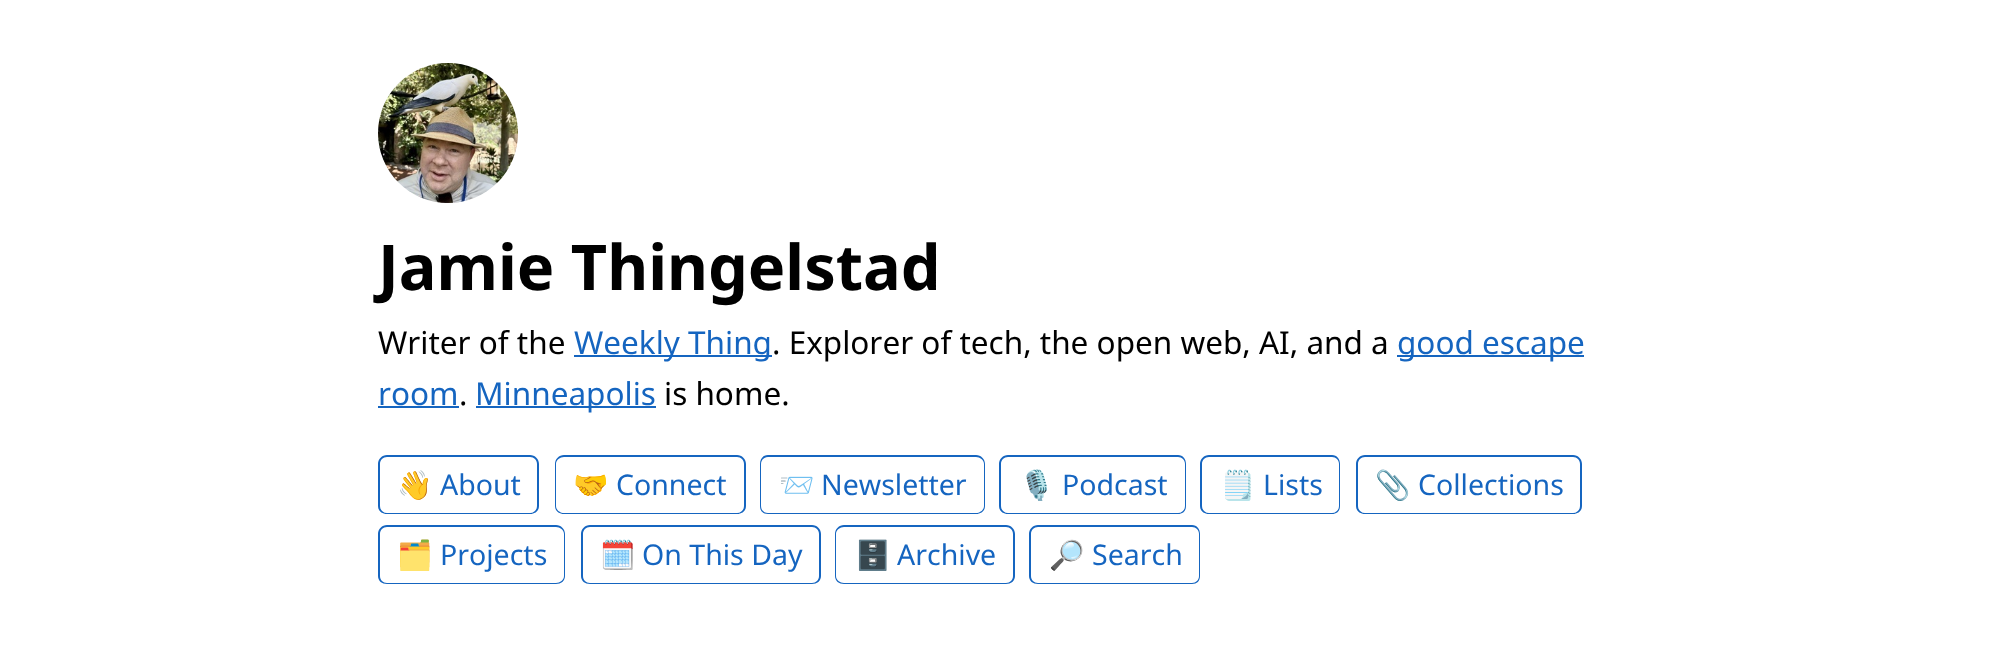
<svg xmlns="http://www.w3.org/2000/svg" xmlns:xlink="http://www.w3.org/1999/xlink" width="2016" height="651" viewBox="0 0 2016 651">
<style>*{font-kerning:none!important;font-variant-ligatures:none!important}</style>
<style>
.cls-1{font:bold 63px Noto Sans;fill:#000000}
.cls-2{font:31.5px Noto Sans;fill:#000000}
.cls-3{font:31.5px Noto Sans;fill:#1565c0}
.cls-4{font:28.5px Noto Color Emoji;fill:#1565c0}
.cls-5{font:28.5px Noto Sans;fill:#1565c0}
</style>
<rect width="100%" height="100%" fill="#ffffff"/>
<image xlink:href="image0.png" x="378" y="63" width="140" height="140"/>
<rect fill="#1565c0" x="574" y="355" width="198" height="2"/>
<rect fill="#1565c0" x="1397" y="355" width="187" height="2"/>
<rect fill="#1565c0" x="378" y="406" width="81" height="2"/>
<rect fill="#1565c0" x="476" y="406" width="180" height="2"/>
<path fill="#1565c0" fill-rule="evenodd" d="M387 455H439V514H387C382 514 378 511 378 506V464C378 459 382 455 387 455ZM387 457H439V513H387C383 513 380 510 380 506V464C380 460 383 457 387 457Z"/>
<path fill="#1565c0" fill-rule="evenodd" d="M439 455H530C535 455 539 459 539 464V506C539 511 535 514 530 514H439ZM439 457H530C534 457 537 460 537 464V506C537 510 534 513 530 513H439Z"/>
<path fill="#1565c0" fill-rule="evenodd" d="M564 455H616V514H564C559 514 555 511 555 506V464C555 459 559 455 564 455ZM564 457H616V513H564C560 513 556 510 556 506V464C556 460 560 457 564 457Z"/>
<path fill="#1565c0" fill-rule="evenodd" d="M616 455H737C742 455 746 459 746 464V506C746 511 742 514 737 514H616ZM616 457H737C741 457 744 460 744 464V506C744 510 741 513 737 513H616Z"/>
<path fill="#1565c0" fill-rule="evenodd" d="M768 455H821V514H768C763 514 760 511 760 506V464C760 459 763 455 768 455ZM768 457H821V513H768C764 513 761 510 761 506V464C761 460 764 457 768 457Z"/>
<path fill="#1565c0" fill-rule="evenodd" d="M821 455H976C981 455 985 459 985 464V506C985 511 981 514 976 514H821ZM821 457H976C980 457 984 460 984 464V506C984 510 980 513 976 513H821Z"/>
<path fill="#1565c0" fill-rule="evenodd" d="M1008 455H1062V514H1008C1003 514 999 511 999 506V464C999 459 1003 455 1008 455ZM1008 457H1062V513H1008C1004 513 1001 510 1001 506V464C1001 460 1004 457 1008 457Z"/>
<path fill="#1565c0" fill-rule="evenodd" d="M1062 455H1178C1183 455 1186 459 1186 464V506C1186 511 1183 514 1178 514H1062ZM1062 457H1178C1182 457 1185 460 1185 464V506C1185 510 1182 513 1178 513H1062Z"/>
<path fill="#1565c0" fill-rule="evenodd" d="M1209 455H1262V514H1209C1204 514 1200 511 1200 506V464C1200 459 1204 455 1209 455ZM1209 457H1262V513H1209C1205 513 1202 510 1202 506V464C1202 460 1205 457 1209 457Z"/>
<path fill="#1565c0" fill-rule="evenodd" d="M1262 455H1332C1337 455 1340 459 1340 464V506C1340 511 1337 514 1332 514H1262ZM1262 457H1332C1336 457 1339 460 1339 464V506C1339 510 1336 513 1332 513H1262Z"/>
<path fill="#1565c0" fill-rule="evenodd" d="M1365 455H1418V514H1365C1360 514 1356 511 1356 506V464C1356 459 1360 455 1365 455ZM1365 457H1418V513H1365C1361 513 1358 510 1358 506V464C1358 460 1361 457 1365 457Z"/>
<path fill="#1565c0" fill-rule="evenodd" d="M1418 455H1573C1578 455 1582 459 1582 464V506C1582 511 1578 514 1573 514H1418ZM1418 457H1573C1577 457 1580 460 1580 464V506C1580 510 1577 513 1573 513H1418Z"/>
<path fill="#1565c0" fill-rule="evenodd" d="M387 525H439V584H387C382 584 378 581 378 576V534C378 529 382 525 387 525ZM387 527H439V583H387C383 583 380 580 380 576V534C380 530 383 527 387 527Z"/>
<path fill="#1565c0" fill-rule="evenodd" d="M439 525H556C561 525 565 529 565 534V576C565 581 561 584 556 584H439ZM439 527H556C560 527 564 530 564 534V576C564 580 560 583 556 583H439Z"/>
<path fill="#1565c0" fill-rule="evenodd" d="M590 525H642V584H590C585 584 581 581 581 576V534C581 529 585 525 590 525ZM590 527H642V583H590C586 583 583 580 583 576V534C583 530 586 527 590 527Z"/>
<path fill="#1565c0" fill-rule="evenodd" d="M642 525H812C817 525 821 529 821 534V576C821 581 817 584 812 584H642ZM642 527H812C816 527 819 530 819 534V576C819 580 816 583 812 583H642Z"/>
<path fill="#1565c0" fill-rule="evenodd" d="M844 525H898V584H844C839 584 835 581 835 576V534C835 529 839 525 844 525ZM844 527H898V583H844C840 583 836 580 836 576V534C836 530 840 527 844 527Z"/>
<path fill="#1565c0" fill-rule="evenodd" d="M898 525H1006C1011 525 1015 529 1015 534V576C1015 581 1011 584 1006 584H898ZM898 527H1006C1010 527 1013 530 1013 534V576C1013 580 1010 583 1006 583H898Z"/>
<path fill="#1565c0" fill-rule="evenodd" d="M1038 525H1092V584H1038C1033 584 1029 581 1029 576V534C1029 529 1033 525 1038 525ZM1038 527H1092V583H1038C1034 583 1031 580 1031 576V534C1031 530 1034 527 1038 527Z"/>
<path fill="#1565c0" fill-rule="evenodd" d="M1092 525H1192C1197 525 1200 529 1200 534V576C1200 581 1197 584 1192 584H1092ZM1092 527H1192C1196 527 1199 530 1199 534V576C1199 580 1196 583 1192 583H1092Z"/>
<text class="cls-1" x="378" y="290">Jamie Thingelstad</text>
<text class="cls-2" x="378" y="354">Writer of the</text>
<text class="cls-3" x="574" y="354">Weekly Thing</text>
<text class="cls-2" x="772" y="354">. Explorer of tech, the open web, AI, and a</text>
<text class="cls-3" x="1397" y="354">good escape</text>
<text class="cls-3" x="378" y="405">room</text>
<text class="cls-2" x="459" y="405">.</text>
<text class="cls-3" x="475" y="405">Minneapolis</text>
<text class="cls-2" x="664" y="405">is home.</text>
<text class="cls-4" x="397" y="495">👋</text>
<text class="cls-5" x="440" y="495">About</text>
<text class="cls-4" x="573" y="495">🤝</text>
<text class="cls-5" x="616" y="495">Connect</text>
<text class="cls-4" x="779" y="495">📨</text>
<text class="cls-5" x="821" y="495">Newsletter</text>
<text class="cls-4" x="1019" y="495">🎙️</text>
<text class="cls-5" x="1062" y="495">Podcast</text>
<text class="cls-4" x="1220" y="495">🗒️</text>
<text class="cls-5" x="1263" y="495">Lists</text>
<text class="cls-4" x="1375" y="495">📎</text>
<text class="cls-5" x="1418" y="495">Collections</text>
<text class="cls-4" x="397" y="565">🗂️</text>
<text class="cls-5" x="440" y="565">Projects</text>
<text class="cls-4" x="600" y="565">🗓️</text>
<text class="cls-5" x="642" y="565">On This Day</text>
<text class="cls-4" x="855" y="565">🗄️</text>
<text class="cls-5" x="897" y="565">Archive</text>
<text class="cls-4" x="1049" y="565">🔎</text>
<text class="cls-5" x="1092" y="565">Search</text>
</svg>
